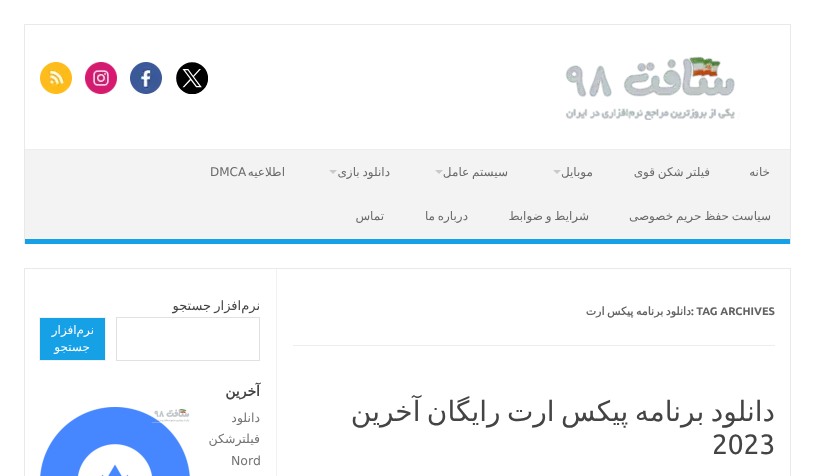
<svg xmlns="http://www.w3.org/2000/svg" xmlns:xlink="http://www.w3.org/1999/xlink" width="815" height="476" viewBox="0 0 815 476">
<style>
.cls-1{font:12px DejaVu Sans;direction:rtl;fill:#6a6a6a}
.cls-2{font:12px DejaVu Sans;fill:#6a6a6a}
.cls-3{font:bold 11px Ubuntu;fill:#636363}
.cls-4{font:bold 11px DejaVu Sans;direction:rtl;fill:#636363}
.cls-5{font:28px DejaVu Sans;direction:rtl;fill:#444444}
.cls-6{font:28px Ubuntu;fill:#444444}
.cls-7{font:13px DejaVu Sans;direction:rtl;fill:#444444}
.cls-8{font:12px DejaVu Sans;direction:rtl;fill:#ffffff}
.cls-9{font:bold 14px DejaVu Sans;direction:rtl;fill:#444444}
.cls-10{font:12.5px DejaVu Sans;direction:rtl;fill:#757575}
.cls-11{font:12.5px DejaVu Sans;fill:#757575}
</style>
<rect width="100%" height="100%" fill="#ffffff"/>
<rect fill="#e9e9e9" x="24" y="24" width="767" height="1"/>
<rect fill="#e9e9e9" x="790" y="24" width="1" height="220"/>
<rect fill="#e9e9e9" x="24" y="24" width="1" height="220"/>
<image xlink:href="image0.png" x="565" y="56" width="175" height="64"/>
<image xlink:href="image1.png" x="176" y="62" width="32" height="32"/>
<image xlink:href="image2.png" x="130" y="62" width="32" height="32"/>
<image xlink:href="image3.png" x="85" y="62" width="32" height="32"/>
<image xlink:href="image4.png" x="40" y="62" width="32" height="32"/>
<rect fill="#f3f3f3" x="25" y="150" width="765" height="89"/>
<rect fill="#ededed" x="25" y="149" width="765" height="1"/>
<rect fill="#16a1e7" x="25" y="239" width="765" height="5"/>
<path fill="#c9c9c9" d="M553 170H561L557 174Z"/>
<path fill="#c9c9c9" d="M435 170H443L439 174Z"/>
<path fill="#c9c9c9" d="M329 170H337L333 174Z"/>
<rect fill="none" stroke="#e9e9e9" x="24.5" y="268.5" width="766" height="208"/>
<rect fill="#f1f1f1" x="276" y="269" width="1" height="207"/>
<rect fill="#ededed" x="293" y="345" width="482" height="1"/>
<rect fill="none" stroke="#e1e1e1" x="116.5" y="317.5" width="143" height="43"/>
<rect fill="#16a1e7" stroke="#f1f1f1" x="39.5" y="317.5" width="66" height="43"/>
<image xlink:href="image5.png" x="40" y="407" width="150" height="69"/>
<text class="cls-1" x="770" y="176">خانه</text>
<text class="cls-1" x="710" y="176" word-spacing="-1">فیلتر شکن قوی</text>
<text class="cls-1" x="593" y="176">موبایل</text>
<text class="cls-1" x="508" y="176" word-spacing="-1">سیستم عامل</text>
<text class="cls-1" x="390" y="176" word-spacing="-1">دانلود بازی</text>
<text class="cls-1" x="285" y="176">اطلاعیه</text>
<text class="cls-2" x="210" y="176">DMCA</text>
<text class="cls-1" x="771" y="220" word-spacing="-1">سیاست حفظ حریم خصوصی</text>
<text class="cls-1" x="589" y="220" word-spacing="-1">شرایط و ضوابط</text>
<text class="cls-1" x="468" y="220" word-spacing="-1">درباره ما</text>
<text class="cls-1" x="384" y="220">تماس</text>
<text class="cls-3" x="691" y="315">: TAG ARCHIVES</text>
<text class="cls-4" x="691" y="315" word-spacing="-1">دانلود برنامه پیکس ارت</text>
<text class="cls-5" x="775" y="421" word-spacing="-2.5">دانلود برنامه پیکس ارت رایگان آخرین</text>
<text class="cls-6" x="712" y="454">2023</text>
<text class="cls-7" x="260" y="310" word-spacing="-1">نرم‌افزار جستجو</text>
<text class="cls-8" x="94" y="334">نرم‌افزار</text>
<text class="cls-8" x="90" y="351">جستجو</text>
<text class="cls-9" x="260" y="396">آخرین</text>
<text class="cls-10"><tspan x="260" y="422">دانلود</tspan><tspan x="260" y="443">فیلترشکن</tspan></text>
<text class="cls-11" x="231" y="465">Nord</text>
</svg>
